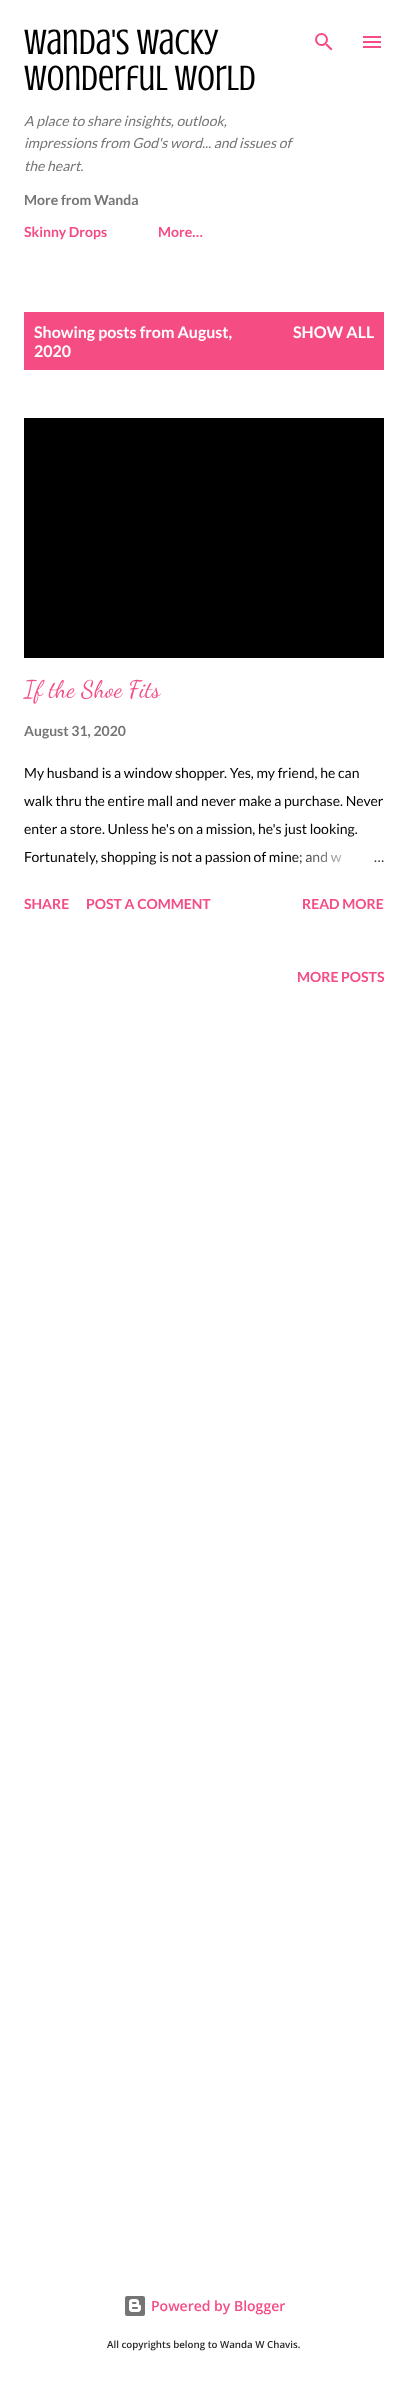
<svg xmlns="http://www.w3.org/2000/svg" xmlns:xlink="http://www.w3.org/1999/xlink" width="408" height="2389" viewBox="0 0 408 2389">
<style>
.cls-1{font:36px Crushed;fill:#000000}
.cls-2{font:italic 14px Lato;fill:#757575}
.cls-3{font:bold 14px Lato;fill:#757575}
.cls-4{font:bold 14px Lato;fill:#f44c83}
.cls-5{font:bold 16px Lato;fill:#ffffff}
.cls-6{font:24px Dancing Script;fill:#f44c83}
.cls-7{font:14px Lato;fill:#000000}
.cls-8{font:14px Lato;fill:#292929}
.cls-9{font:600 14px Open Sans;fill:#f44c83}
.cls-10{font:600 9.75px Open Sans;fill:#292929}
</style>
<defs>
<linearGradient id="g1" gradientUnits="userSpaceOnUse" x1="384" y1="857" x2="288" y2="857"><stop offset="0" stop-color="#ffffff"/><stop offset="0.2" stop-color="#ffffff"/><stop offset="1" stop-color="#ffffff" stop-opacity="0"/></linearGradient>
</defs>
<rect width="100%" height="100%" fill="#ffffff"/>
<image xlink:href="image0.png" x="315" y="33" width="18" height="18"/>
<image xlink:href="image1.png" x="363" y="36" width="18" height="12"/>
<rect fill="#f44c83" x="24" y="312" width="360" height="58"/>
<rect fill="#000000" x="24" y="418" width="360" height="240"/>
<image xlink:href="image2.png" x="125" y="2296" width="20" height="20"/>
<text class="cls-1"><tspan x="24" y="54">Wanda's Wacky</tspan><tspan x="24" y="90">Wonderful World</tspan></text>
<text class="cls-2"><tspan x="24" y="126">A place to share insights, outlook,</tspan><tspan x="24" y="148">impressions from God's word... and issues of</tspan><tspan x="24" y="171">the heart.</tspan></text>
<text class="cls-3" x="24" y="205">More from Wanda</text>
<text class="cls-4" x="24" y="237">Skinny Drops</text>
<text class="cls-4" x="158" y="237">More…</text>
<text class="cls-5"><tspan x="34" y="338">Showing posts from August,</tspan><tspan x="34" y="357">2020</tspan></text>
<text class="cls-5" x="293" y="338">SHOW ALL</text>
<text class="cls-6" x="24" y="697">If the Shoe Fits</text>
<text class="cls-3" x="24" y="736">August 31, 2020</text>
<text class="cls-7" x="24" y="778">My husband is a window shopper. Yes, my friend, he can</text>
<text class="cls-7" x="24" y="806">walk thru the entire mall and never make a purchase. Never</text>
<text class="cls-7" x="24" y="834">enter a store. Unless he's on a mission, he's just looking.</text>
<text class="cls-7" x="24" y="862">Fortunately, shopping is not a passion of mine; and w</text>
<rect fill="url(#g1)" x="290" y="851" width="52" height="13"/>
<text class="cls-8" x="374" y="862">…</text>
<text class="cls-4" x="24" y="909">SHARE</text>
<text class="cls-4" x="86" y="909">POST A COMMENT</text>
<text class="cls-4" x="302" y="909">READ MORE</text>
<text class="cls-4" x="297" y="982">MORE POSTS</text>
<text class="cls-9" x="151" y="2311">Powered by Blogger</text>
<text class="cls-10" x="107" y="2348">All copyrights belong to Wanda W Chavis.</text>
</svg>
